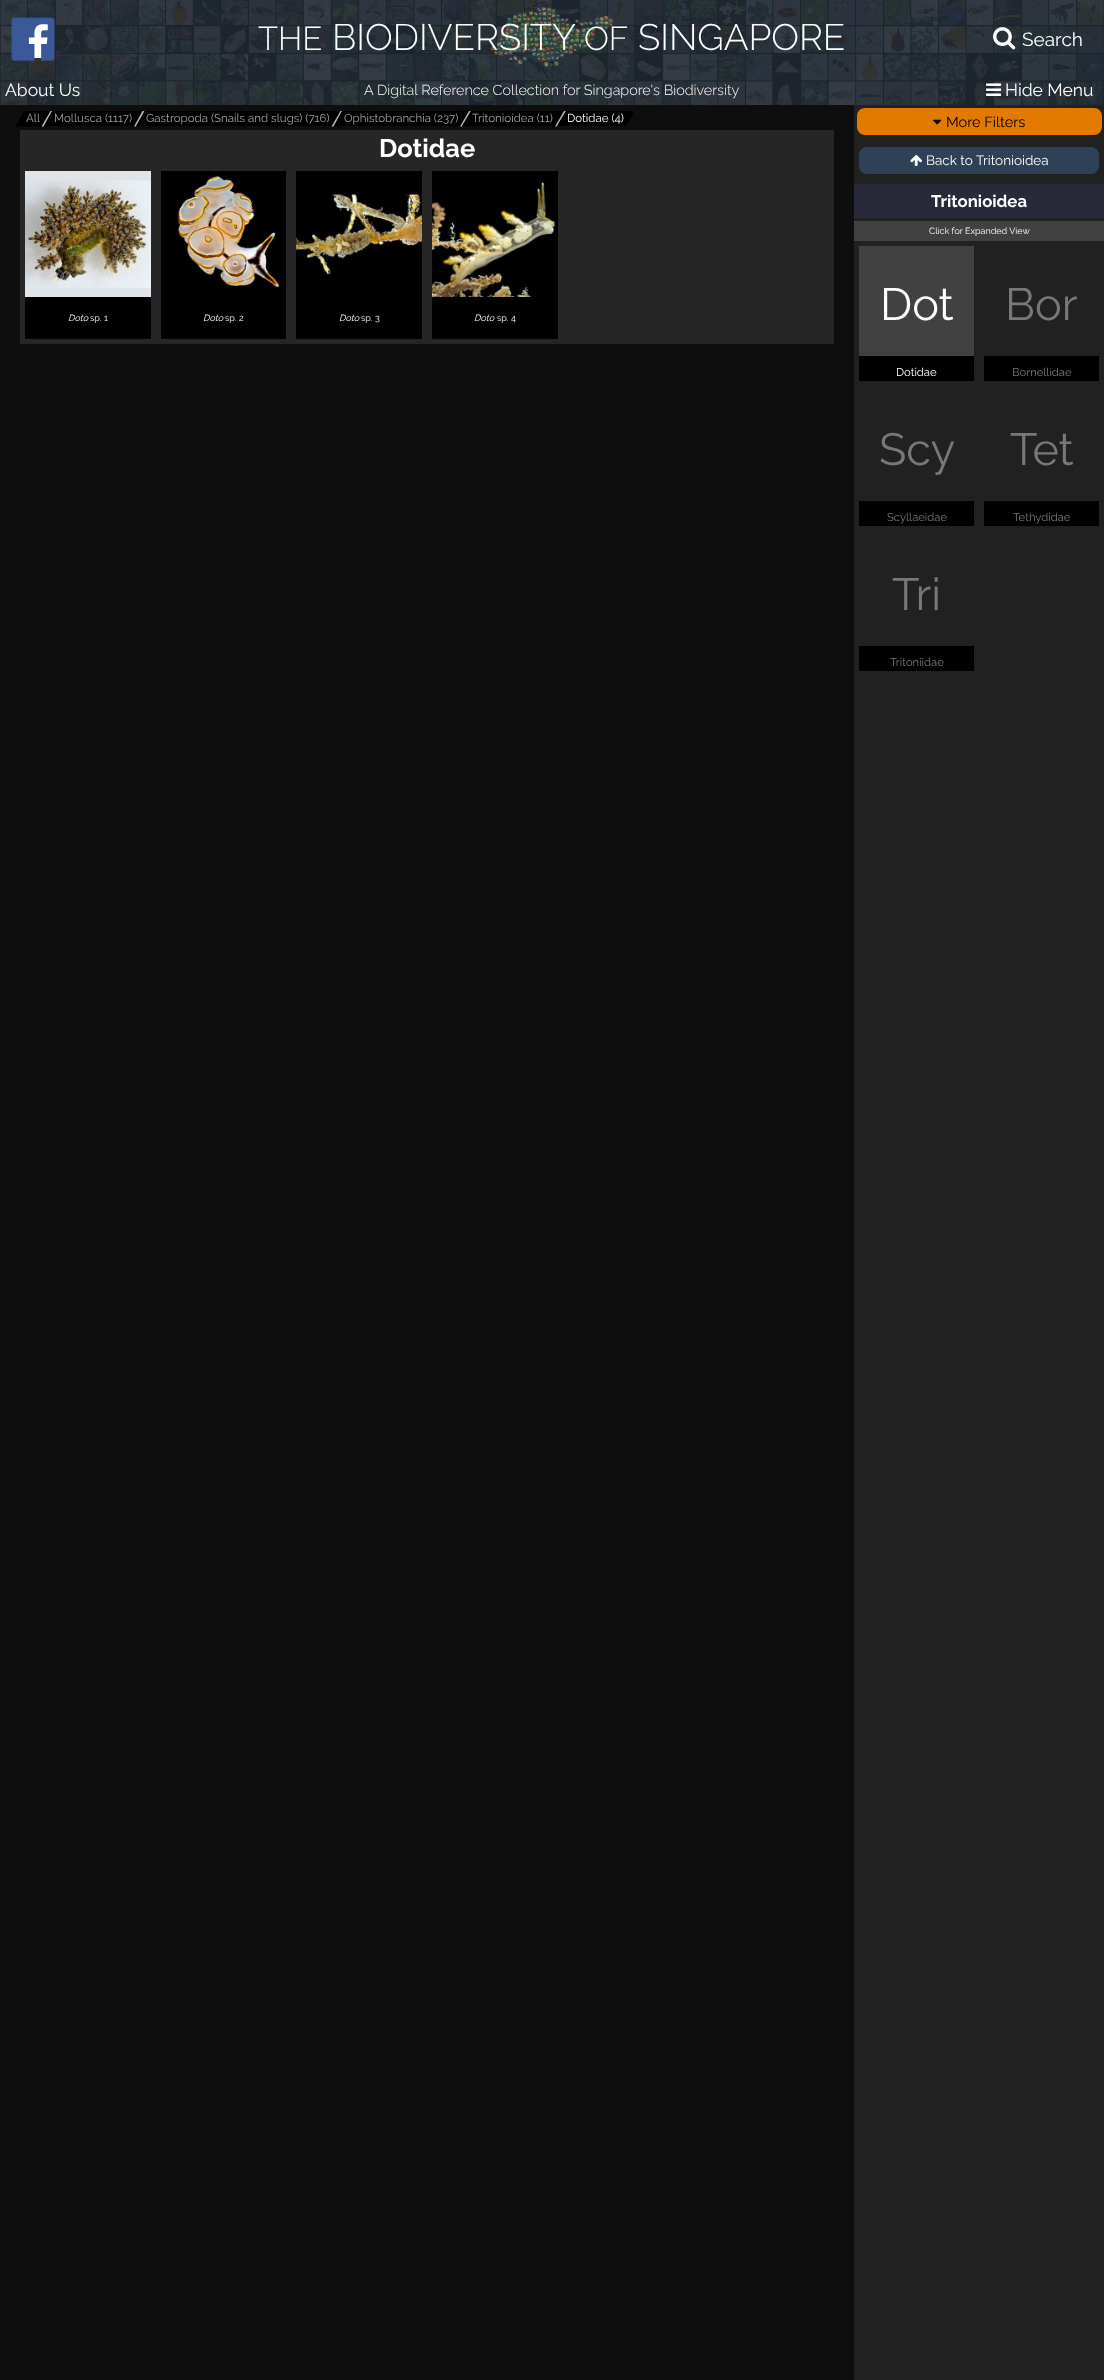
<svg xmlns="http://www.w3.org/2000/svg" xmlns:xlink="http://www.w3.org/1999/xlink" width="1104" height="2380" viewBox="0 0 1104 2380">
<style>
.cls-1{font:300 33px Raleway;fill:#ffffff}
.cls-2{font:300 36.75px Raleway;fill:#ffffff}
.cls-3{font:19px Raleway;fill:#ffffff}
.cls-4{font:17.5px Raleway;fill:#ffffff}
.cls-5{font:300 14.4px Raleway;fill:#ffffff}
.cls-6{font:11.5px Raleway;fill:#a0a0a0}
.cls-7{font:11.5px Raleway;fill:#ffffff}
.cls-8{font:bold 25.5px Raleway;fill:#ffffff}
.cls-9{font:italic 9px Raleway;fill:#ffffff}
.cls-10{font:9px Raleway;fill:#ffffff}
.cls-11{font:14.5px Raleway;fill:#000000}
.cls-12{font:13.5px Raleway;fill:#ffffff}
.cls-13{font:bold 16.75px Raleway;fill:#ffffff}
.cls-14{font:45px Raleway;fill:#ffffff}
.cls-15{font:11.25px Raleway;fill:#ffffff}
.cls-16{font:45px Raleway;fill:#787878}
.cls-17{font:11.25px Raleway;fill:#787878}
</style>
<rect width="100%" height="100%" fill="#0e0e0e"/>
<image xlink:href="image0.png" x="0" y="0" width="1104" height="105"/>
<rect fill="#ffffff" x="28" y="24" width="20" height="34"/>
<image xlink:href="image1.png" x="11" y="17" width="44" height="44"/>
<image xlink:href="image2.png" x="491" y="7" width="122" height="60"/>
<image xlink:href="image3.png" x="993" y="27" width="23" height="23"/>
<image xlink:href="image4.png" x="986" y="83" width="16" height="13"/>
<path fill="#000000" d="M24.5 111H52.5L43.5 126.5H15.5Z"/>
<path fill="#b5b5b5" d="M50.5 111H52.5L43.5 126.5H41.5Z"/>
<path fill="#000000" d="M52 111H145L136 126H44Z"/>
<path fill="#b5b5b5" d="M142.5 111H144.5L136 126.5H134Z"/>
<path fill="#000000" d="M145 111H342L334 126H136Z"/>
<path fill="#b5b5b5" d="M340.5 111H342.5L333.5 126.5H331.5Z"/>
<path fill="#000000" d="M342 111H471L462 126H334Z"/>
<path fill="#b5b5b5" d="M469 111H471L462 126.5H460Z"/>
<path fill="#000000" d="M471 111H566L557 126H462Z"/>
<path fill="#b5b5b5" d="M564 111H566L557 126.5H555Z"/>
<path fill="#000000" d="M566 111H630C633 111 634 113 632 116L626 126H557Z"/>
<rect fill="#262626" x="20" y="130" width="814" height="214"/>
<rect fill="#000000" x="25" y="297" width="126" height="42"/>
<image xlink:href="image5.png" x="25" y="171" width="126" height="126"/>
<rect fill="#000000" x="161" y="171" width="125" height="168"/>
<image xlink:href="image6.png" x="174" y="171" width="107" height="118"/>
<rect fill="#000000" x="296" y="171" width="126" height="168"/>
<image xlink:href="image7.png" x="296" y="191" width="126" height="84"/>
<rect fill="#000000" x="432" y="171" width="126" height="168"/>
<image xlink:href="image8.png" x="432" y="181" width="124" height="116"/>
<rect fill="#212121" x="854" y="105" width="250" height="2275"/>
<rect fill="#e27a00" x="857" y="108" width="245" height="27" rx="8"/>
<image xlink:href="image9.png" x="933" y="119" width="9" height="6"/>
<rect fill="#2e4156" x="859" y="147" width="240" height="27" rx="8"/>
<image xlink:href="image10.png" x="910" y="154" width="12" height="12"/>
<rect fill="#282a3a" x="854" y="184" width="250" height="34"/>
<rect fill="#414141" x="854" y="221" width="250" height="20"/>
<rect fill="#000000" x="859" y="356" width="115" height="25"/>
<rect fill="#414141" x="859" y="246" width="115" height="110"/>
<rect fill="#000000" x="984" y="356" width="115" height="25"/>
<rect fill="#000000" x="859" y="501" width="115" height="25"/>
<rect fill="#000000" x="984" y="501" width="115" height="25"/>
<rect fill="#000000" x="859" y="646" width="115" height="25"/>
<text class="cls-1" x="258" y="50">THE</text>
<text class="cls-2" x="332" y="50">BIODIVERSITY</text>
<text class="cls-1" x="584" y="50">OF</text>
<text class="cls-2" x="638" y="50">SINGAPORE</text>
<text class="cls-3" x="1022" y="46">Search</text>
<text class="cls-4" x="5" y="96">About Us</text>
<text class="cls-5" x="364" y="95">A Digital Reference Collection for Singapore's Biodiversity</text>
<text class="cls-4" x="1005" y="96">Hide Menu</text>
<text class="cls-6" x="26" y="122">All</text>
<text class="cls-6" x="54" y="122">Mollusca (1117)</text>
<text class="cls-6" x="146" y="122">Gastropoda (Snails and slugs) (716)</text>
<text class="cls-6" x="344" y="122">Ophistobranchia (237)</text>
<text class="cls-6" x="472" y="122">Tritonioidea (11)</text>
<text class="cls-7" x="567" y="122">Dotidae (4)</text>
<text class="cls-8" x="379" y="157">Dotidae</text>
<text class="cls-9" x="68" y="321">Doto</text>
<text class="cls-10" x="90" y="321">sp. 1</text>
<text class="cls-9" x="203" y="321">Doto</text>
<text class="cls-10" x="225" y="321">sp. 2</text>
<text class="cls-9" x="339" y="321">Doto</text>
<text class="cls-10" x="361" y="321">sp. 3</text>
<text class="cls-9" x="474" y="321">Doto</text>
<text class="cls-10" x="497" y="321">sp. 4</text>
<text class="cls-11" x="946" y="127">More Filters</text>
<text class="cls-12" x="926" y="165">Back to</text>
<text class="cls-12" x="976" y="165">Tritonioidea</text>
<text class="cls-13" x="931" y="207">Tritonioidea</text>
<text class="cls-10" x="929" y="234">Click for Expanded View</text>
<text class="cls-14" x="880" y="320">Dot</text>
<text class="cls-15" x="896" y="376">Dotidae</text>
<text class="cls-16" x="1005" y="320">Bor</text>
<text class="cls-17" x="1012" y="376">Bornellidae</text>
<text class="cls-16" x="879" y="465">Scy</text>
<text class="cls-17" x="887" y="521">Scyllaeidae</text>
<text class="cls-16" x="1010" y="465">Tet</text>
<text class="cls-17" x="1013" y="521">Tethydidae</text>
<text class="cls-16" x="892" y="610">Tri</text>
<text class="cls-17" x="890" y="666">Tritoniidae</text>
</svg>
